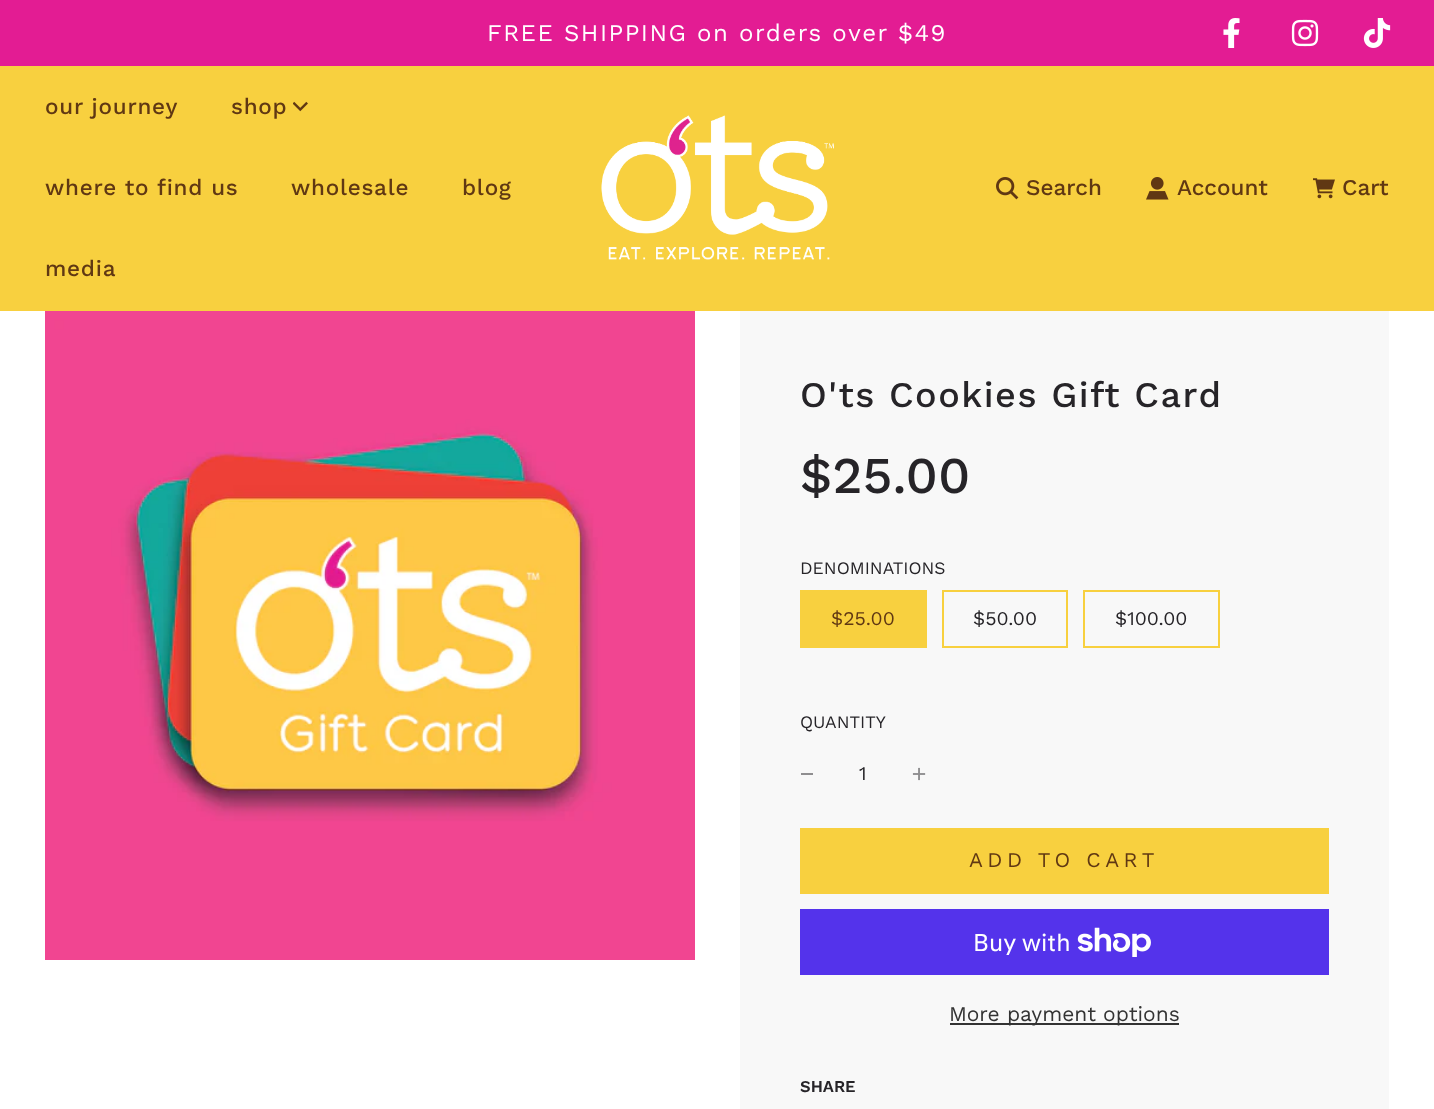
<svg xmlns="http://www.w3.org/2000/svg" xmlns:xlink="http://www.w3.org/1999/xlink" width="1434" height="1109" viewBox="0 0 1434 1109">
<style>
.cls-1{font:24px Work Sans;letter-spacing:1.5px;fill:#ffffff}
.cls-2{font:500 22.5px Work Sans;letter-spacing:0.75px;fill:#603813}
.cls-3{font:500 22.5px Work Sans;fill:#603813}
.cls-4{font:500 36px Work Sans;letter-spacing:1.5px;fill:#262428}
.cls-5{font:500 51.5px Work Sans;fill:#262428}
.cls-6{font:17.5px Work Sans;fill:#262428}
.cls-7{font:19.5px Work Sans;fill:#603813}
.cls-8{font:19.5px Work Sans;fill:#262428}
.cls-9{font:21px Work Sans;letter-spacing:4.5px;fill:#603813}
.cls-10{font:24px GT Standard;fill:#ffffff}
.cls-11{font:21px Work Sans;fill:#333333}
.cls-12{font:600 16.5px Work Sans;fill:#262428}
</style>
<rect width="100%" height="100%" fill="#ffffff"/>
<rect fill="#e31c93" x="0" y="0" width="1434" height="66"/>
<image xlink:href="image0.png" x="1223" y="18" width="17" height="30"/>
<image xlink:href="image1.png" x="1291" y="19" width="28" height="28"/>
<image xlink:href="image2.png" x="1363" y="18" width="28" height="30"/>
<rect fill="#f8d03f" x="0" y="66" width="1434" height="245"/>
<image xlink:href="image3.png" x="293" y="101" width="15" height="11"/>
<image xlink:href="image4.png" x="601" y="115" width="233" height="145"/>
<image xlink:href="image5.png" x="996" y="177" width="23" height="23"/>
<image xlink:href="image6.png" x="1146" y="177" width="23" height="23"/>
<image xlink:href="image7.png" x="1313" y="178" width="22" height="21"/>
<image xlink:href="image8.png" x="45" y="311" width="650" height="649"/>
<rect fill="#f8f8f8" x="740" y="311" width="649" height="798"/>
<rect fill="#f8d03f" x="800" y="590" width="127" height="58"/>
<rect fill="none" stroke="#f8d03f" stroke-width="2" x="943" y="591" width="124" height="56"/>
<rect fill="none" stroke="#f8d03f" stroke-width="2" x="1084" y="591" width="135" height="56"/>
<rect fill="#8f8e90" x="801" y="773" width="12" height="2"/>
<image xlink:href="image9.png" x="912" y="767" width="14" height="14"/>
<rect fill="#f8d03f" x="800" y="828" width="529" height="66"/>
<rect fill="#5433eb" x="800" y="909" width="529" height="66"/>
<image xlink:href="image10.png" x="1077" y="927" width="74" height="30"/>
<rect fill="#333333" x="950" y="1023" width="229" height="2"/>
<text class="cls-1" x="487" y="41">FREE SHIPPING on orders over $49</text>
<text class="cls-2" x="45" y="114">our journey</text>
<text class="cls-2" x="231" y="114">shop</text>
<text class="cls-2" x="45" y="195">where to find us</text>
<text class="cls-2" x="291" y="195">wholesale</text>
<text class="cls-2" x="462" y="195">blog</text>
<text class="cls-2" x="45" y="276">media</text>
<text class="cls-3" x="1026" y="195">Search</text>
<text class="cls-3" x="1177" y="195">Account</text>
<text class="cls-3" x="1342" y="195">Cart</text>
<text class="cls-4" x="800" y="407">O'ts Cookies Gift Card</text>
<text class="cls-5" x="800" y="493">$25.00</text>
<text class="cls-6" x="800" y="574">DENOMINATIONS</text>
<text class="cls-7" x="831" y="625">$25.00</text>
<text class="cls-8" x="973" y="625">$50.00</text>
<text class="cls-8" x="1115" y="625">$100.00</text>
<text class="cls-6" x="800" y="728">QUANTITY</text>
<text class="cls-8" x="859" y="780">1</text>
<text class="cls-9" x="969" y="867">ADD TO CART</text>
<text class="cls-10" x="973" y="951">Buy with</text>
<text class="cls-11" x="949" y="1021">More payment options</text>
<text class="cls-12" x="800" y="1092">SHARE</text>
</svg>
